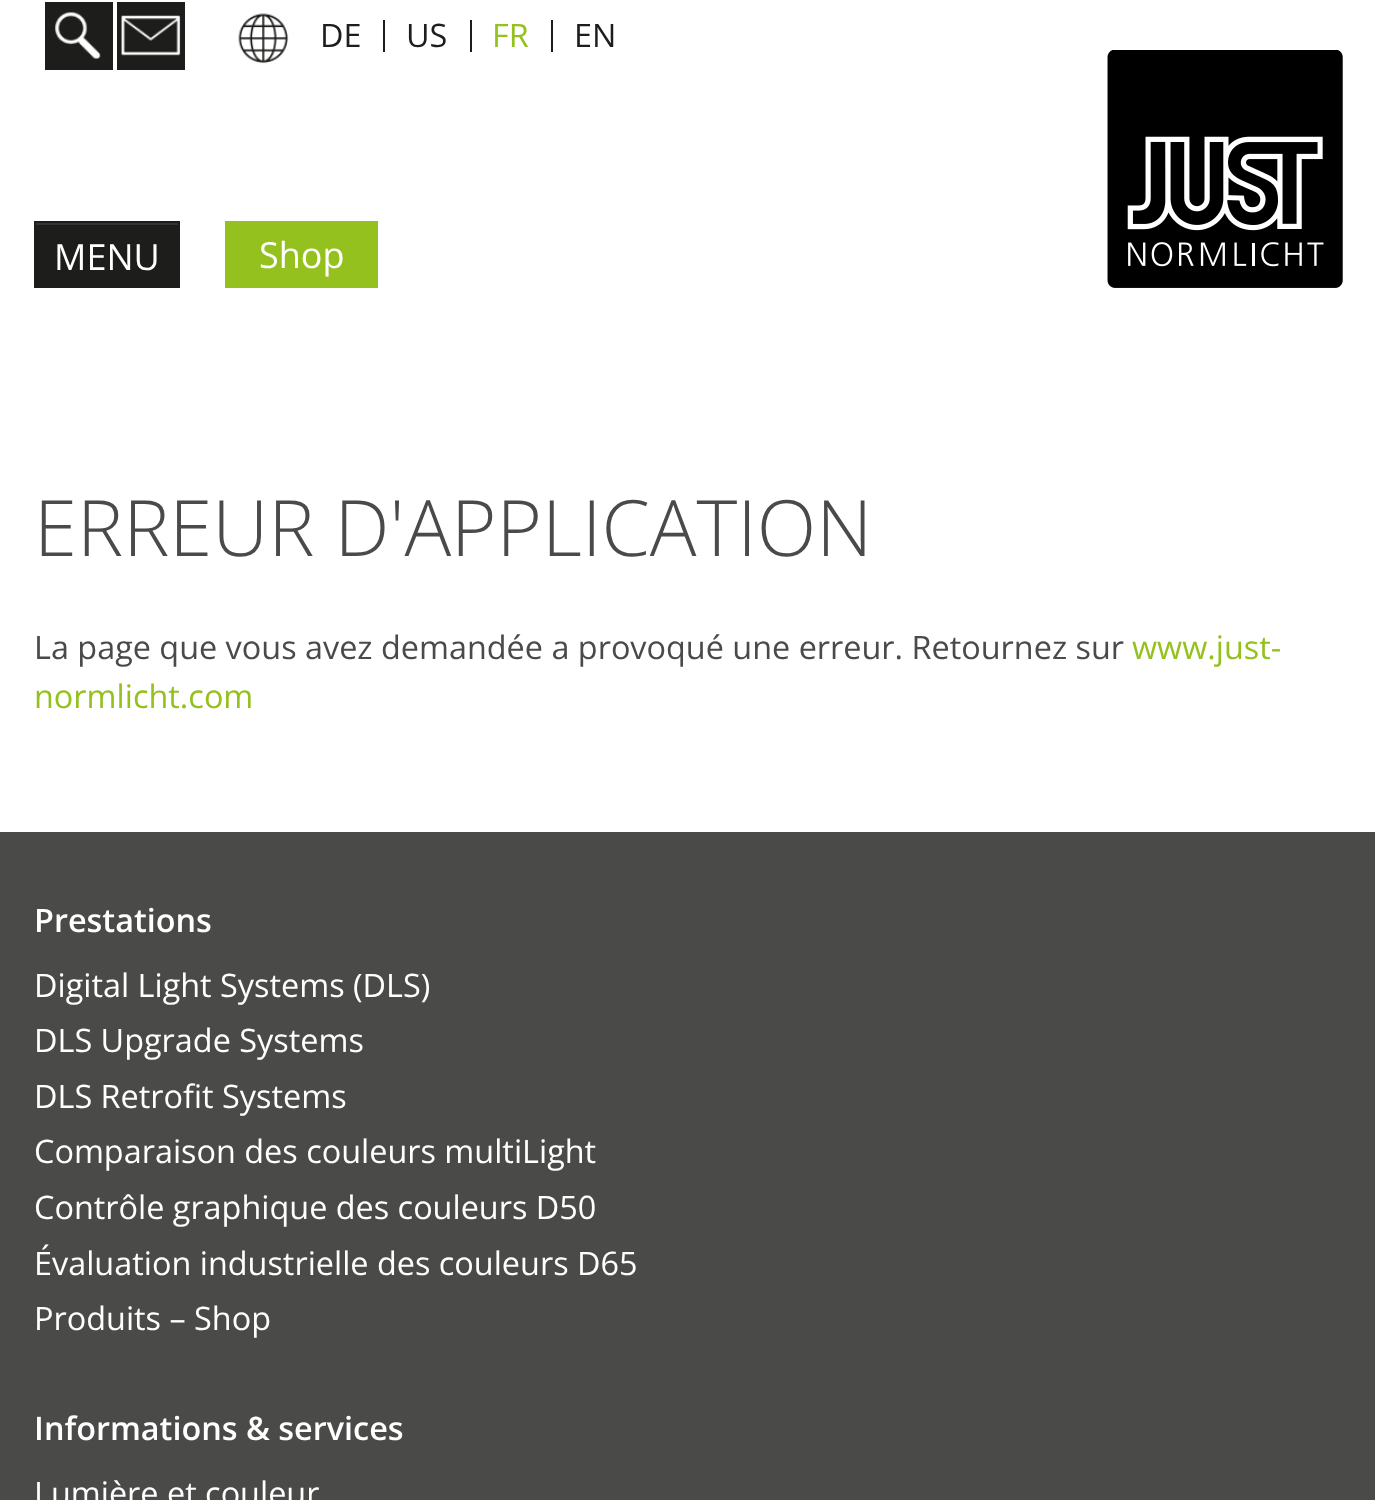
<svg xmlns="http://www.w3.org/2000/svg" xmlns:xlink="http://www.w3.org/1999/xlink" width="1375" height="1500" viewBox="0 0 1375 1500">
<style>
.cls-1{font:32.4px Open Sans;fill:#1d1d1b}
.cls-2{font:32.4px Open Sans;fill:#95c11f}
.cls-3{font:36px Open Sans;fill:#ffffff}
.cls-4{font:300 77.75px Open Sans;fill:#4a4a49}
.cls-5{font:32.4px Open Sans;fill:#4a4a49}
.cls-6{font:600 32.4px Open Sans;fill:#ffffff}
.cls-7{font:32.4px Open Sans;fill:#ffffff}
</style>
<rect width="100%" height="100%" fill="#ffffff"/>
<rect fill="#1d1d1b" x="45" y="2" width="68" height="68"/>
<image xlink:href="image0.png" x="55" y="12" width="46" height="47"/>
<rect fill="#1d1d1b" x="117" y="2" width="68" height="68"/>
<image xlink:href="image1.png" x="121" y="15" width="60" height="41"/>
<image xlink:href="image2.png" x="238" y="13" width="51" height="51"/>
<rect fill="#1d1d1b" x="383" y="20" width="2" height="32"/>
<rect fill="#1d1d1b" x="470" y="20" width="2" height="32"/>
<rect fill="#1d1d1b" x="551" y="20" width="2" height="32"/>
<rect fill="#1d1d1b" x="34" y="221" width="146" height="67"/>
<rect fill="#343432" x="36" y="223" width="142" height="2"/>
<rect fill="#95c11f" x="225" y="221" width="153" height="67"/>
<image xlink:href="image3.png" x="1107" y="50" width="236" height="238"/>
<rect fill="#4a4a49" x="0" y="832" width="1375" height="668"/>
<text class="cls-1" x="320" y="47">DE</text>
<text class="cls-1" x="406" y="47">US</text>
<text class="cls-2" x="492" y="47">FR</text>
<text class="cls-1" x="574" y="47">EN</text>
<text class="cls-3" x="54" y="270">MENU</text>
<text class="cls-3" x="259" y="268">Shop</text>
<text class="cls-4" x="34" y="556">ERREUR D'APPLICATION</text>
<text class="cls-5" x="34" y="659">La page que vous avez demandée a provoqué une erreur. Retournez sur</text>
<text class="cls-2" x="1132" y="659">www.just-</text>
<text class="cls-2" x="34" y="708">normlicht.com</text>
<text class="cls-6" x="34" y="932">Prestations</text>
<text class="cls-7"><tspan x="34" y="997">Digital Light Systems (DLS)</tspan><tspan x="34" y="1052">DLS Upgrade Systems</tspan><tspan x="34" y="1108">DLS Retrofit Systems</tspan><tspan x="34" y="1163">Comparaison des couleurs multiLight</tspan><tspan x="34" y="1219">Contrôle graphique des couleurs D50</tspan><tspan x="34" y="1275">Évaluation industrielle des couleurs D65</tspan><tspan x="34" y="1330">Produits – Shop</tspan></text>
<text class="cls-6" x="34" y="1440">Informations &amp; services</text>
<text class="cls-7" x="34" y="1505">Lumière et couleur</text>
</svg>
